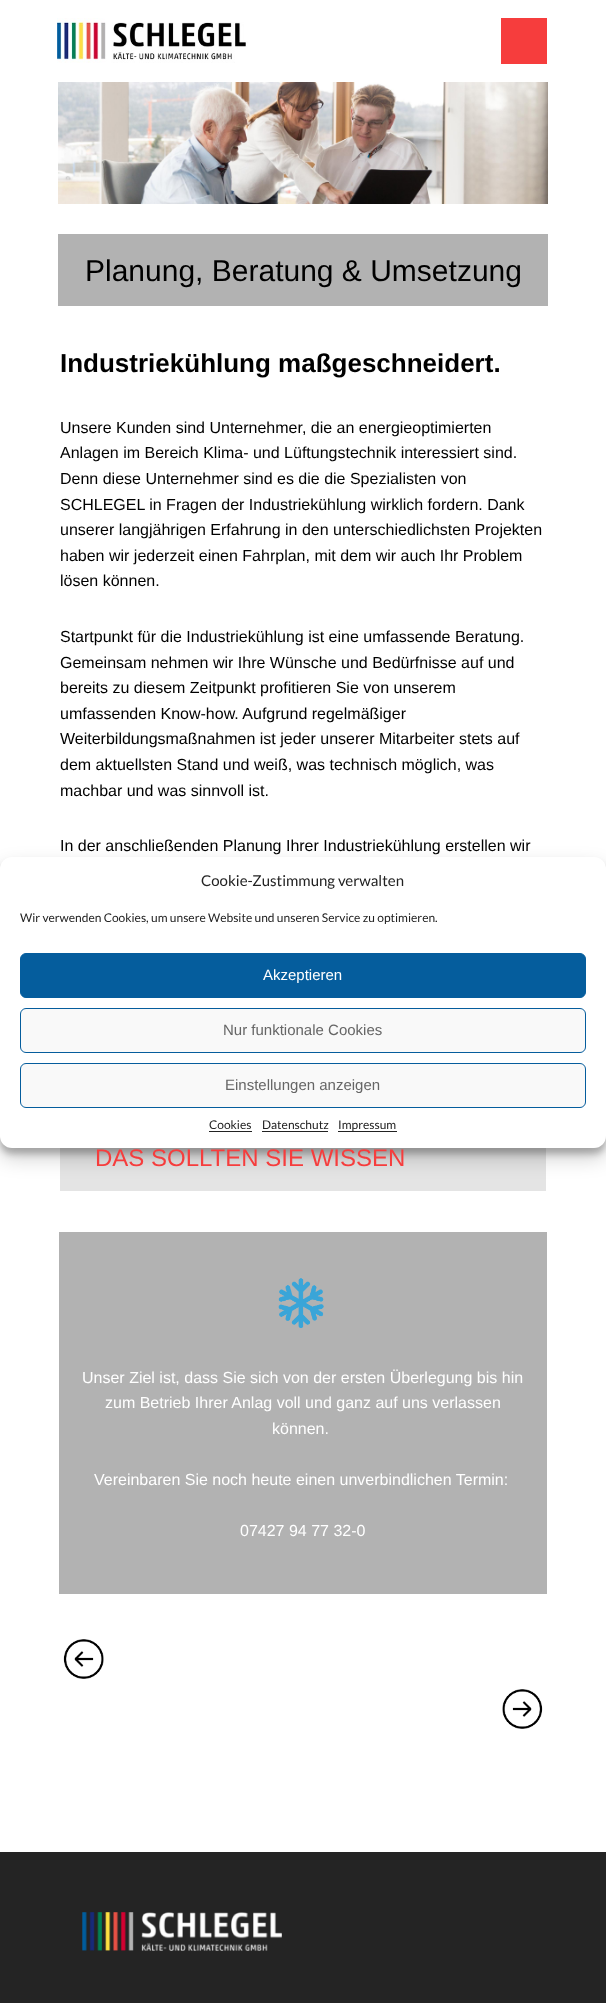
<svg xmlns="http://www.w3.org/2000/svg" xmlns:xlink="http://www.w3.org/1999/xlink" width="606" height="2003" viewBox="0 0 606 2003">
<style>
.cls-1{font:30px Liberation Sans;fill:#000000}
.cls-2{font:bold 26px Liberation Sans;fill:#000000}
.cls-3{font:16px Liberation Sans;fill:#000000}
.cls-4{font:24px Liberation Sans;fill:#f63d3d}
.cls-5{font:16px Liberation Sans;fill:#ffffff}
.cls-6{font:15px Lato;fill:#222222}
.cls-7{font:12px Lato;fill:#222222}
.cls-8{font:15px Liberation Sans;fill:#ffffff}
.cls-9{font:15px Liberation Sans;fill:#666666}
</style>
<rect width="100%" height="100%" fill="#ffffff"/>
<image xlink:href="image0.png" x="57" y="18" width="191" height="45"/>
<rect fill="#f63d3d" x="501" y="18" width="46" height="46"/>
<image xlink:href="image1.png" x="58" y="82" width="490" height="122"/>
<rect fill="#b2b2b2" x="58" y="234" width="490" height="72"/>
<rect fill="#e4e4e4" x="60" y="1148" width="486" height="43"/>
<rect fill="#b2b2b2" x="59" y="1232" width="488" height="362"/>
<image xlink:href="image2.png" x="278" y="1278" width="46" height="50"/>
<image xlink:href="image3.png" x="63" y="1639" width="41" height="40"/>
<image xlink:href="image4.png" x="502" y="1689" width="41" height="40"/>
<rect fill="#000000" fill-opacity="0.23" filter="blur(3px)" x="0" y="863" width="606" height="291" rx="12"/>
<rect fill="#000000" fill-opacity="0.19" filter="blur(10px)" x="0" y="867" width="606" height="291" rx="12"/>
<rect fill="#ffffff" x="0" y="857" width="606" height="291" rx="12"/>
<rect fill="#055d9d" stroke="#055d9d" x="20.5" y="953.5" width="565" height="44" rx="5.5"/>
<rect fill="#f9f9f9" stroke="#055d9d" x="20.5" y="1008.5" width="565" height="44" rx="5.5"/>
<rect fill="#f9f9f9" stroke="#055d9d" x="20.5" y="1063.5" width="565" height="44" rx="5.5"/>
<rect fill="#222222" x="209" y="1131" width="43" height="1"/>
<rect fill="#222222" x="262" y="1131" width="66" height="1"/>
<rect fill="#222222" x="338" y="1131" width="59" height="1"/>
<rect fill="#242424" x="0" y="1852" width="606" height="151"/>
<image xlink:href="image5.png" x="82" y="1912" width="200" height="39"/>
<text class="cls-1" x="85" y="281">Planung, Beratung &amp; Umsetzung</text>
<text class="cls-2" x="60" y="372">Industriekühlung maßgeschneidert.</text>
<text class="cls-3"><tspan x="60" y="433">Unsere Kunden sind Unternehmer, die an energieoptimierten</tspan><tspan x="60" y="458">Anlagen im Bereich Klima- und Lüftungstechnik interessiert sind.</tspan><tspan x="60" y="484">Denn diese Unternehmer sind es die die Spezialisten von</tspan><tspan x="60" y="510">SCHLEGEL in Fragen der Industriekühlung wirklich fordern. Dank</tspan><tspan x="60" y="535">unserer langjährigen Erfahrung in den unterschiedlichsten Projekten</tspan><tspan x="60" y="561">haben wir jederzeit einen Fahrplan, mit dem wir auch Ihr Problem</tspan><tspan x="60" y="586">lösen können.</tspan></text>
<text class="cls-3"><tspan x="60" y="642">Startpunkt für die Industriekühlung ist eine umfassende Beratung.</tspan><tspan x="60" y="668">Gemeinsam nehmen wir Ihre Wünsche und Bedürfnisse auf und</tspan><tspan x="60" y="693">bereits zu diesem Zeitpunkt profitieren Sie von unserem</tspan><tspan x="60" y="719">umfassenden Know-how. Aufgrund regelmäßiger</tspan><tspan x="60" y="744">Weiterbildungsmaßnahmen ist jeder unserer Mitarbeiter stets auf</tspan><tspan x="60" y="770">dem aktuellsten Stand und weiß, was technisch möglich, was</tspan><tspan x="60" y="796">machbar und was sinnvoll ist.</tspan></text>
<text class="cls-3" x="60" y="851">In der anschließenden Planung Ihrer Industriekühlung erstellen wir</text>
<text class="cls-4" x="95" y="1166">DAS SOLLTEN SIE WISSEN</text>
<text class="cls-5" x="82" y="1383">Unser Ziel ist, dass Sie sich von der ersten Überlegung bis hin</text>
<text class="cls-5" x="105" y="1408">zum Betrieb Ihrer Anlag voll und ganz auf uns verlassen</text>
<text class="cls-5" x="272" y="1434">können.</text>
<text class="cls-5" x="94" y="1485">Vereinbaren Sie noch heute einen unverbindlichen Termin:</text>
<text class="cls-5" x="240" y="1536">07427 94 77 32-0</text>
<text class="cls-6" x="201" y="886">Cookie-Zustimmung verwalten</text>
<text class="cls-7" x="20" y="922">Wir verwenden Cookies, um unsere Website und unseren Service zu optimieren.</text>
<text class="cls-8" x="263" y="980">Akzeptieren</text>
<text class="cls-9" x="223" y="1035">Nur funktionale Cookies</text>
<text class="cls-9" x="225" y="1090">Einstellungen anzeigen</text>
<text class="cls-7" x="209" y="1129">Cookies</text>
<text class="cls-7" x="262" y="1129">Datenschutz</text>
<text class="cls-7" x="338" y="1129">Impressum</text>
</svg>
